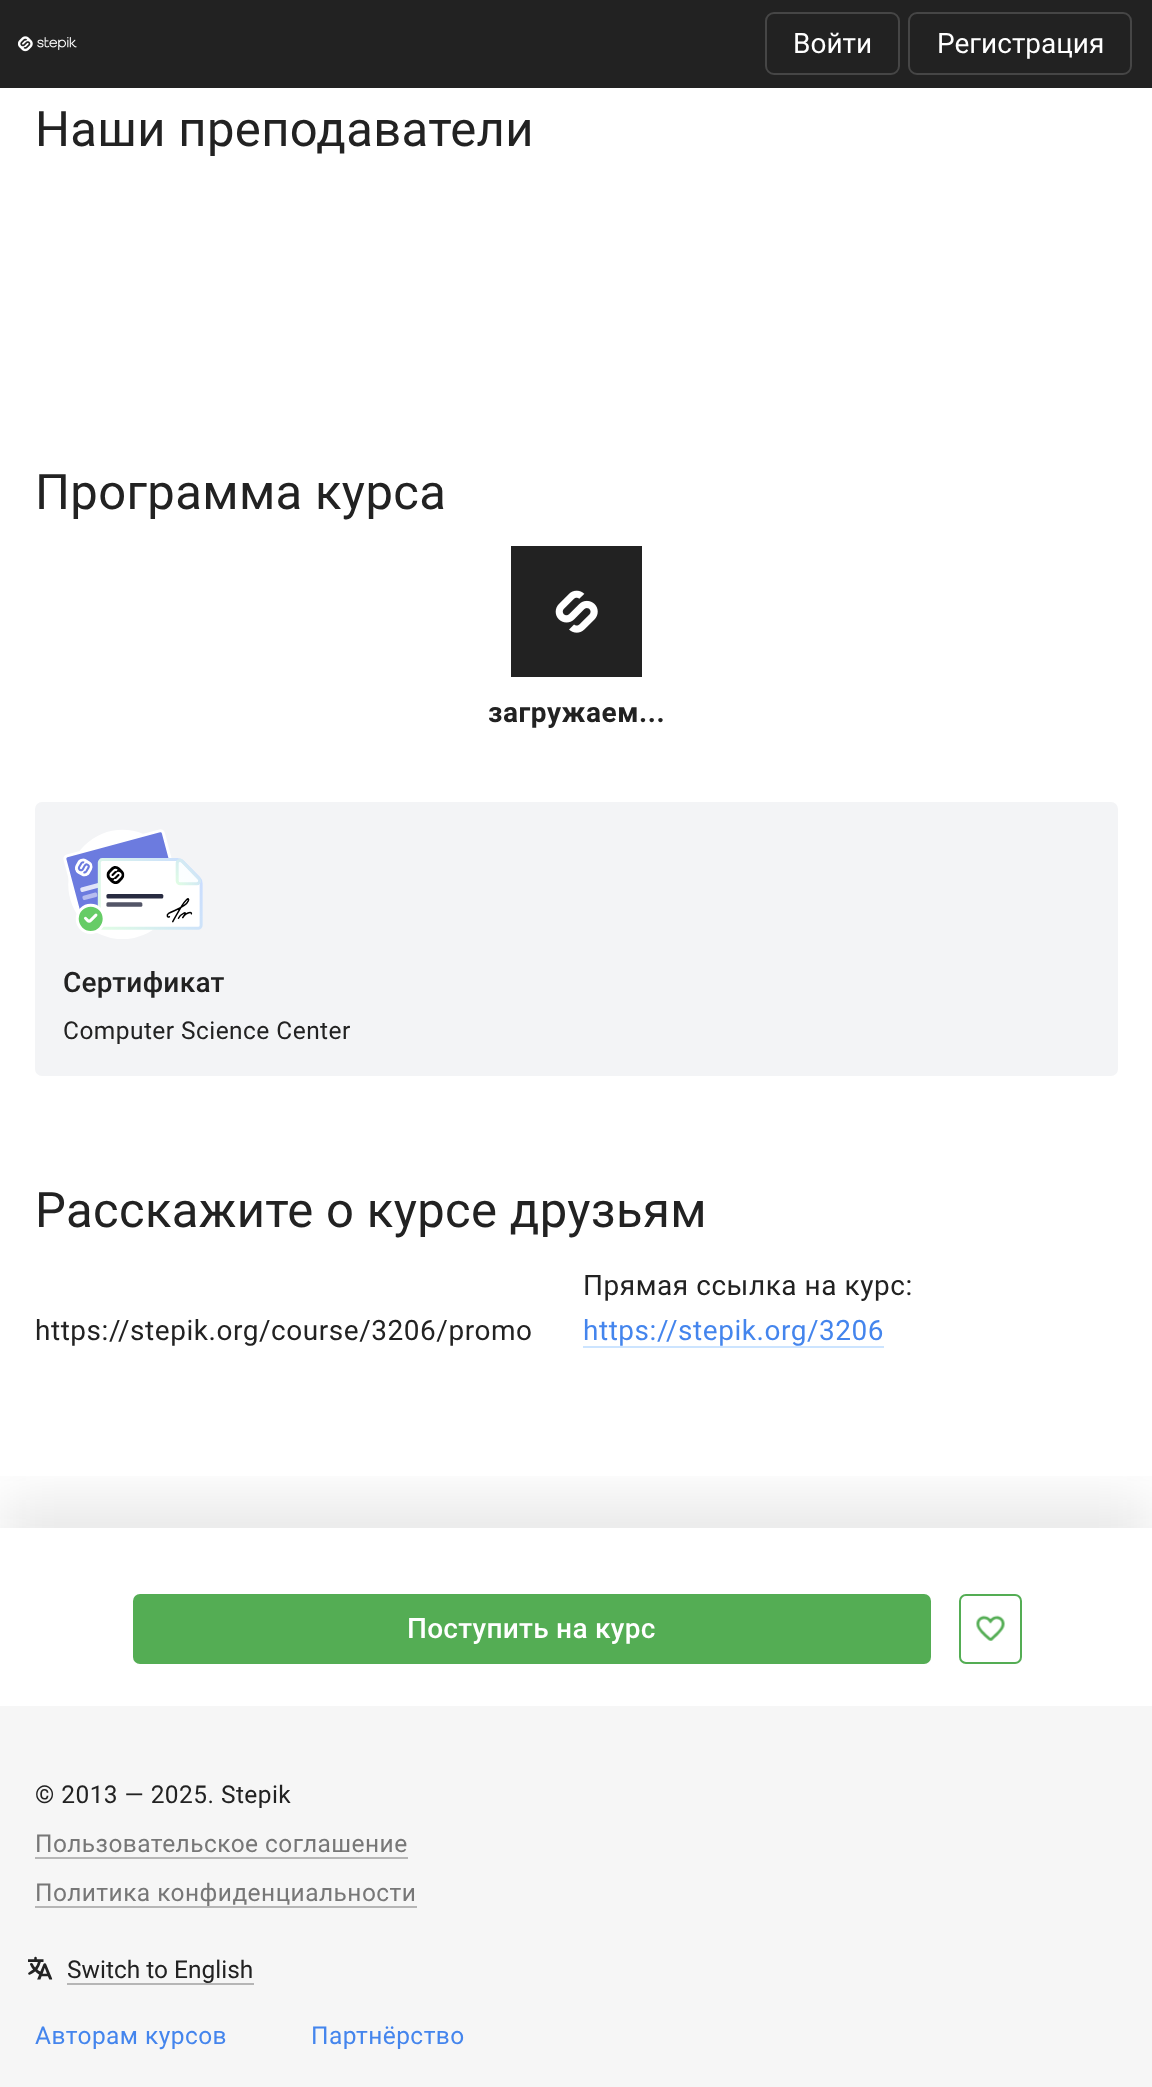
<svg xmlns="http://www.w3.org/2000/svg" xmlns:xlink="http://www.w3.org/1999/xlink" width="1152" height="2087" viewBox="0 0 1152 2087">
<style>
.cls-1{font:28px Roboto;fill:#ffffff}
.cls-2{font:49px Roboto;letter-spacing:0.35px;fill:#222222}
.cls-3{font:bold 28px Roboto;letter-spacing:0.55px;fill:#222222}
.cls-4{font:500 28px Roboto;letter-spacing:0.25px;fill:#222222}
.cls-5{font:24.5px Roboto;letter-spacing:0.45px;fill:#222222}
.cls-6{font:28px Roboto;letter-spacing:0.55px;fill:#222222}
.cls-7{font:28px Roboto;letter-spacing:0.55px;fill:#4485ed}
.cls-8{font:500 28px Roboto;letter-spacing:0.25px;fill:#ffffff}
.cls-9{font:24.5px Roboto;letter-spacing:0.45px;fill:#777777}
.cls-10{font:24.5px Roboto;fill:#222222}
.cls-11{font:24.5px Roboto;letter-spacing:0.45px;fill:#4485ed}
</style>
<defs>
<clipPath id="clip1"><rect x="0" y="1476" width="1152" height="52"/></clipPath>
</defs>
<rect width="100%" height="100%" fill="#ffffff"/>
<rect fill="#222222" x="0" y="0" width="1152" height="88"/>
<image xlink:href="image0.png" x="18" y="36" width="59" height="16"/>
<rect fill="none" stroke="#464646" stroke-width="2" x="766" y="13" width="133" height="61" rx="8"/>
<rect fill="none" stroke="#464646" stroke-width="2" x="909" y="13" width="222" height="61" rx="8"/>
<rect fill="#222222" x="511" y="546" width="131" height="131"/>
<image xlink:href="image1.png" x="555" y="590" width="43" height="43"/>
<rect fill="#f3f4f6" x="35" y="802" width="1083" height="274" rx="7"/>
<image xlink:href="image2.png" x="63" y="829" width="140" height="110"/>
<rect fill="#cce4ff" x="583" y="1346" width="301" height="2"/>
<rect fill="#f6f6f6" x="0" y="1706" width="1152" height="381"/>
<g clip-path="url(#clip1)">
<rect fill="#222222" fill-opacity="0.1" filter="blur(28px)" x="0" y="1500" width="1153" height="178"/>
</g>
<rect fill="#54ad54" x="133" y="1594" width="798" height="70" rx="7"/>
<rect fill="none" stroke="#54ad54" stroke-width="2" x="960" y="1595" width="61" height="68" rx="6"/>
<image xlink:href="image3.png" x="976" y="1615" width="29" height="26"/>
<rect fill="#b6b6b6" x="35" y="1857" width="373" height="2"/>
<rect fill="#b6b6b6" x="35" y="1906" width="382" height="2"/>
<image xlink:href="image4.png" x="28" y="1956" width="25" height="24"/>
<rect fill="#b6b6b6" x="67" y="1983" width="187" height="2"/>
<text class="cls-1" x="793" y="53">Войти</text>
<text class="cls-1" x="937" y="53">Регистрация</text>
<text class="cls-2" x="35" y="146">Наши преподаватели</text>
<text class="cls-2" x="35" y="509">Программа курса</text>
<text class="cls-3" x="488" y="722">загружаем...</text>
<text class="cls-4" x="63" y="992">Сертификат</text>
<text class="cls-5" x="63" y="1039">Computer Science Center</text>
<text class="cls-2" x="35" y="1227">Расскажите о курсе друзьям</text>
<text class="cls-6" x="35" y="1340">https://stepik.org/course/3206/promo</text>
<text class="cls-6" x="583" y="1295">Прямая ссылка на курс:</text>
<text class="cls-7" x="583" y="1340">https://stepik.org/3206</text>
<text class="cls-8" x="407" y="1638">Поступить на курс</text>
<text class="cls-5" x="35" y="1803">© 2013 — 2025. Stepik</text>
<text class="cls-9" x="35" y="1852">Пользовательское соглашение</text>
<text class="cls-9" x="35" y="1901">Политика конфиденциальности</text>
<text class="cls-10" x="67" y="1978">Switch to English</text>
<text class="cls-11" x="35" y="2044">Авторам курсов</text>
<text class="cls-11" x="311" y="2044">Партнёрство</text>
</svg>
